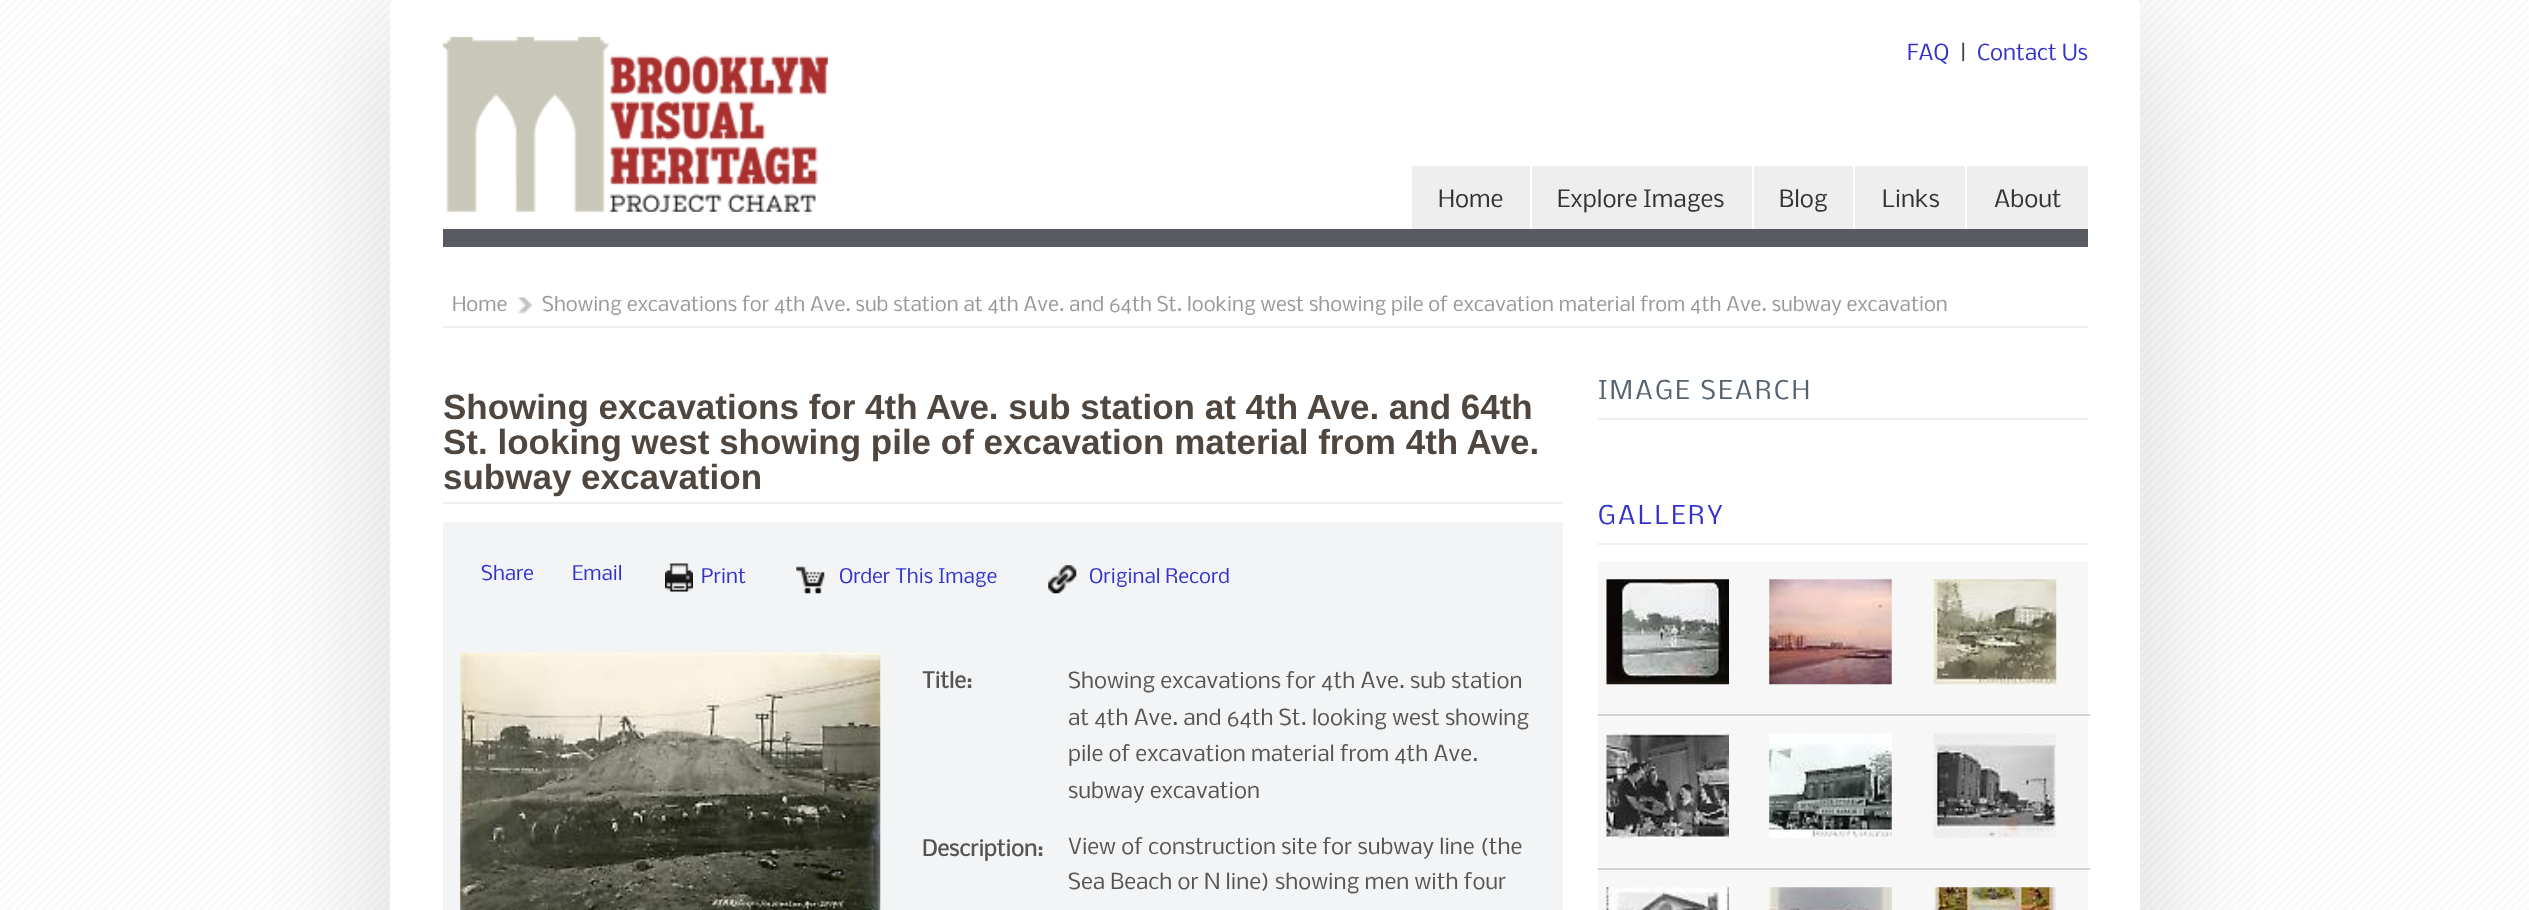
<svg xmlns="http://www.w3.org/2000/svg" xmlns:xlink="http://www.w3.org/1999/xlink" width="2529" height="910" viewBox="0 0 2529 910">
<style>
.cls-1{font:21px Nobile;fill:#3333cc}
.cls-2{font:21px Nobile;fill:#444444}
.cls-3{font:22.75px Nobile;fill:#333333}
.cls-4{font:19.25px Nobile;fill:#999999}
.cls-5{font:bold 35px Liberation Sans;fill:#4f4640}
.cls-6{font:19.25px Nobile;fill:#3333cc}
.cls-7{font:bold 21px Nobile;fill:#555555}
.cls-8{font:21px Nobile;fill:#555555}
.cls-9{font:24.5px Nobile;letter-spacing:2.5px;fill:#556270}
.cls-10{font:24.5px Nobile;letter-spacing:2.5px;fill:#3333cc}
</style>
<rect width="100%" height="100%" fill="#ffffff"/>
<image xlink:href="image0.png" x="0" y="0" width="2529" height="910"/>
<rect fill="#000000" fill-opacity="0.15" filter="blur(70px)" x="390" y="18" width="1750" height="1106" rx="4"/>
<rect fill="#ffffff" x="390" y="0" width="1750" height="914" rx="4"/>
<rect fill="#585b62" x="443" y="229" width="1645" height="18"/>
<image xlink:href="image1.png" x="442" y="36" width="386" height="176"/>
<rect fill="#eeeeee" x="1412" y="166" width="118" height="63"/>
<rect fill="#eeeeee" x="1532" y="166" width="220" height="63"/>
<rect fill="#eeeeee" x="1754" y="166" width="99" height="63"/>
<rect fill="#eeeeee" x="1855" y="166" width="110" height="63"/>
<rect fill="#eeeeee" x="1967" y="166" width="121" height="63"/>
<rect fill="#efefef" x="443" y="326" width="1645" height="2"/>
<image xlink:href="image2.png" x="517" y="297" width="16" height="17"/>
<rect fill="#efefef" x="443" y="502" width="1120" height="2"/>
<rect fill="#f3f4f5" x="443" y="522" width="1120" height="388"/>
<image xlink:href="image3.png" x="665" y="563" width="28" height="29"/>
<image xlink:href="image4.png" x="796" y="566" width="29" height="28"/>
<image xlink:href="image5.png" x="1048" y="565" width="29" height="29"/>
<image xlink:href="image6.png" x="460" y="652" width="421" height="258"/>
<rect fill="#efefef" x="1598" y="418" width="490" height="2"/>
<rect fill="#efefef" x="1598" y="543" width="490" height="2"/>
<rect fill="#f7f7f7" x="1598" y="562" width="490" height="152"/>
<image xlink:href="image7.png" x="1606" y="579" width="123" height="106"/>
<rect fill="#d1d1d1" x="1598" y="714" width="492" height="2"/>
<image xlink:href="image8.png" x="1933" y="579" width="124" height="106"/>
<image xlink:href="image9.png" x="1769" y="579" width="123" height="106"/>
<rect fill="#f7f7f7" x="1598" y="716" width="490" height="152"/>
<image xlink:href="image10.png" x="1606" y="733" width="123" height="106"/>
<rect fill="#d1d1d1" x="1598" y="868" width="492" height="2"/>
<image xlink:href="image11.png" x="1933" y="733" width="124" height="105"/>
<image xlink:href="image12.png" x="1769" y="733" width="123" height="105"/>
<rect fill="#f7f7f7" x="1598" y="870" width="490" height="40"/>
<image xlink:href="image13.png" x="1606" y="887" width="123" height="23"/>
<image xlink:href="image14.png" x="1769" y="887" width="123" height="23"/>
<image xlink:href="image15.png" x="1933" y="887" width="124" height="23"/>
<text class="cls-1" x="1907" y="60">FAQ</text>
<text class="cls-2" x="1960" y="60">|</text>
<text class="cls-1" x="1977" y="60">Contact Us</text>
<text class="cls-3" x="1438" y="207">Home</text>
<text class="cls-3" x="1557" y="207">Explore Images</text>
<text class="cls-3" x="1779" y="207">Blog</text>
<text class="cls-3" x="1882" y="207">Links</text>
<text class="cls-3" x="1994" y="207">About</text>
<text class="cls-4" x="452" y="311">Home</text>
<text class="cls-4" x="542" y="311">Showing excavations for 4th Ave. sub station at 4th Ave. and 64th St. looking west showing pile of excavation material from 4th Ave. subway excavation</text>
<text class="cls-5"><tspan x="443" y="419">Showing excavations for 4th Ave. sub station at 4th Ave. and 64th</tspan><tspan x="443" y="454">St. looking west showing pile of excavation material from 4th Ave.</tspan><tspan x="443" y="489">subway excavation</tspan></text>
<text class="cls-6" x="481" y="580">Share</text>
<text class="cls-6" x="572" y="580">Email</text>
<text class="cls-6" x="701" y="583">Print</text>
<text class="cls-6" x="839" y="583">Order This Image</text>
<text class="cls-6" x="1089" y="583">Original Record</text>
<text class="cls-7" x="922" y="688">Title:</text>
<text class="cls-8"><tspan x="1068" y="688">Showing excavations for 4th Ave. sub station</tspan><tspan x="1068" y="725">at 4th Ave. and 64th St. looking west showing</tspan><tspan x="1068" y="761">pile of excavation material from 4th Ave.</tspan><tspan x="1068" y="798">subway excavation</tspan></text>
<text class="cls-7" x="922" y="856">Description:</text>
<text class="cls-8"><tspan x="1068" y="854">View of construction site for subway line (the</tspan><tspan x="1068" y="889">Sea Beach or N line) showing men with four</tspan></text>
<text class="cls-9" x="1598" y="399">IMAGE SEARCH</text>
<text class="cls-10" x="1598" y="524">GALLERY</text>
</svg>
